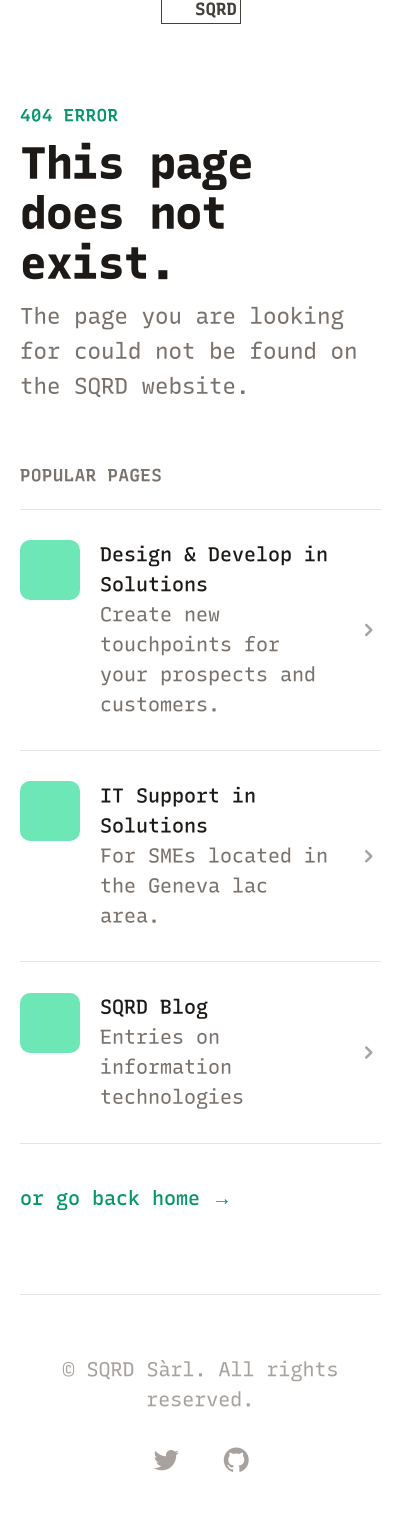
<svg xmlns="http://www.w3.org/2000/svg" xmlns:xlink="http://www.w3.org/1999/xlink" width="401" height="1534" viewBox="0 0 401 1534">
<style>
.cls-1{font:20px Liberation Sans;fill:#059669}
</style>
<rect width="100%" height="100%" fill="#ffffff"/>
<rect fill="none" stroke="#44403c" x="161.5" y="-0.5" width="79" height="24"/>
<image xlink:href="image0.png" x="196" y="2" width="40" height="16"/>
<image xlink:href="image1.png" x="20" y="108" width="98" height="14"/>
<image xlink:href="image2.png" x="22" y="142" width="229" height="48"/>
<image xlink:href="image3.png" x="22" y="195" width="202" height="35"/>
<image xlink:href="image4.png" x="22" y="242" width="146" height="38"/>
<image xlink:href="image5.png" x="21" y="306" width="323" height="24"/>
<image xlink:href="image6.png" x="21" y="341" width="335" height="18"/>
<image xlink:href="image7.png" x="21" y="376" width="224" height="22"/>
<image xlink:href="image8.png" x="20" y="468" width="141" height="14"/>
<rect fill="#e7e5e4" x="20" y="509" width="361" height="1"/>
<rect fill="#e7e5e4" x="20" y="1143" width="361" height="1"/>
<rect fill="#6ee7b7" x="20" y="540" width="60" height="60" rx="10"/>
<image xlink:href="image9.png" x="100" y="545" width="227" height="22"/>
<image xlink:href="image10.png" x="101" y="575" width="106" height="17"/>
<image xlink:href="image11.png" x="101" y="606" width="119" height="16"/>
<image xlink:href="image12.png" x="101" y="635" width="178" height="21"/>
<image xlink:href="image13.png" x="101" y="666" width="214" height="20"/>
<image xlink:href="image14.png" x="101" y="697" width="115" height="15"/>
<image xlink:href="image15.png" x="365" y="623" width="8" height="14"/>
<rect fill="#e7e5e4" x="20" y="750" width="361" height="1"/>
<rect fill="#6ee7b7" x="20" y="781" width="60" height="60" rx="10"/>
<image xlink:href="image16.png" x="101" y="786" width="154" height="21"/>
<image xlink:href="image17.png" x="101" y="816" width="106" height="17"/>
<image xlink:href="image18.png" x="101" y="847" width="226" height="16"/>
<image xlink:href="image19.png" x="101" y="877" width="166" height="16"/>
<image xlink:href="image20.png" x="101" y="911" width="55" height="12"/>
<image xlink:href="image21.png" x="365" y="850" width="8" height="13"/>
<rect fill="#e7e5e4" x="20" y="961" width="361" height="1"/>
<rect fill="#6ee7b7" x="20" y="993" width="60" height="60" rx="10"/>
<image xlink:href="image22.png" x="101" y="998" width="107" height="21"/>
<image xlink:href="image23.png" x="100" y="1028" width="119" height="16"/>
<image xlink:href="image24.png" x="101" y="1058" width="130" height="16"/>
<image xlink:href="image25.png" x="101" y="1088" width="142" height="21"/>
<image xlink:href="image26.png" x="365" y="1046" width="8" height="13"/>
<image xlink:href="image27.png" x="21" y="1190" width="178" height="20"/>
<rect fill="#e7e5e4" x="20" y="1294" width="361" height="1"/>
<image xlink:href="image28.png" x="62" y="1359" width="275" height="23"/>
<image xlink:href="image29.png" x="147" y="1391" width="103" height="16"/>
<image xlink:href="image30.png" x="154" y="1450" width="25" height="21"/>
<image xlink:href="image31.png" x="223" y="1447" width="26" height="25"/>
<text class="cls-1" x="212" y="1205">→</text>
</svg>
